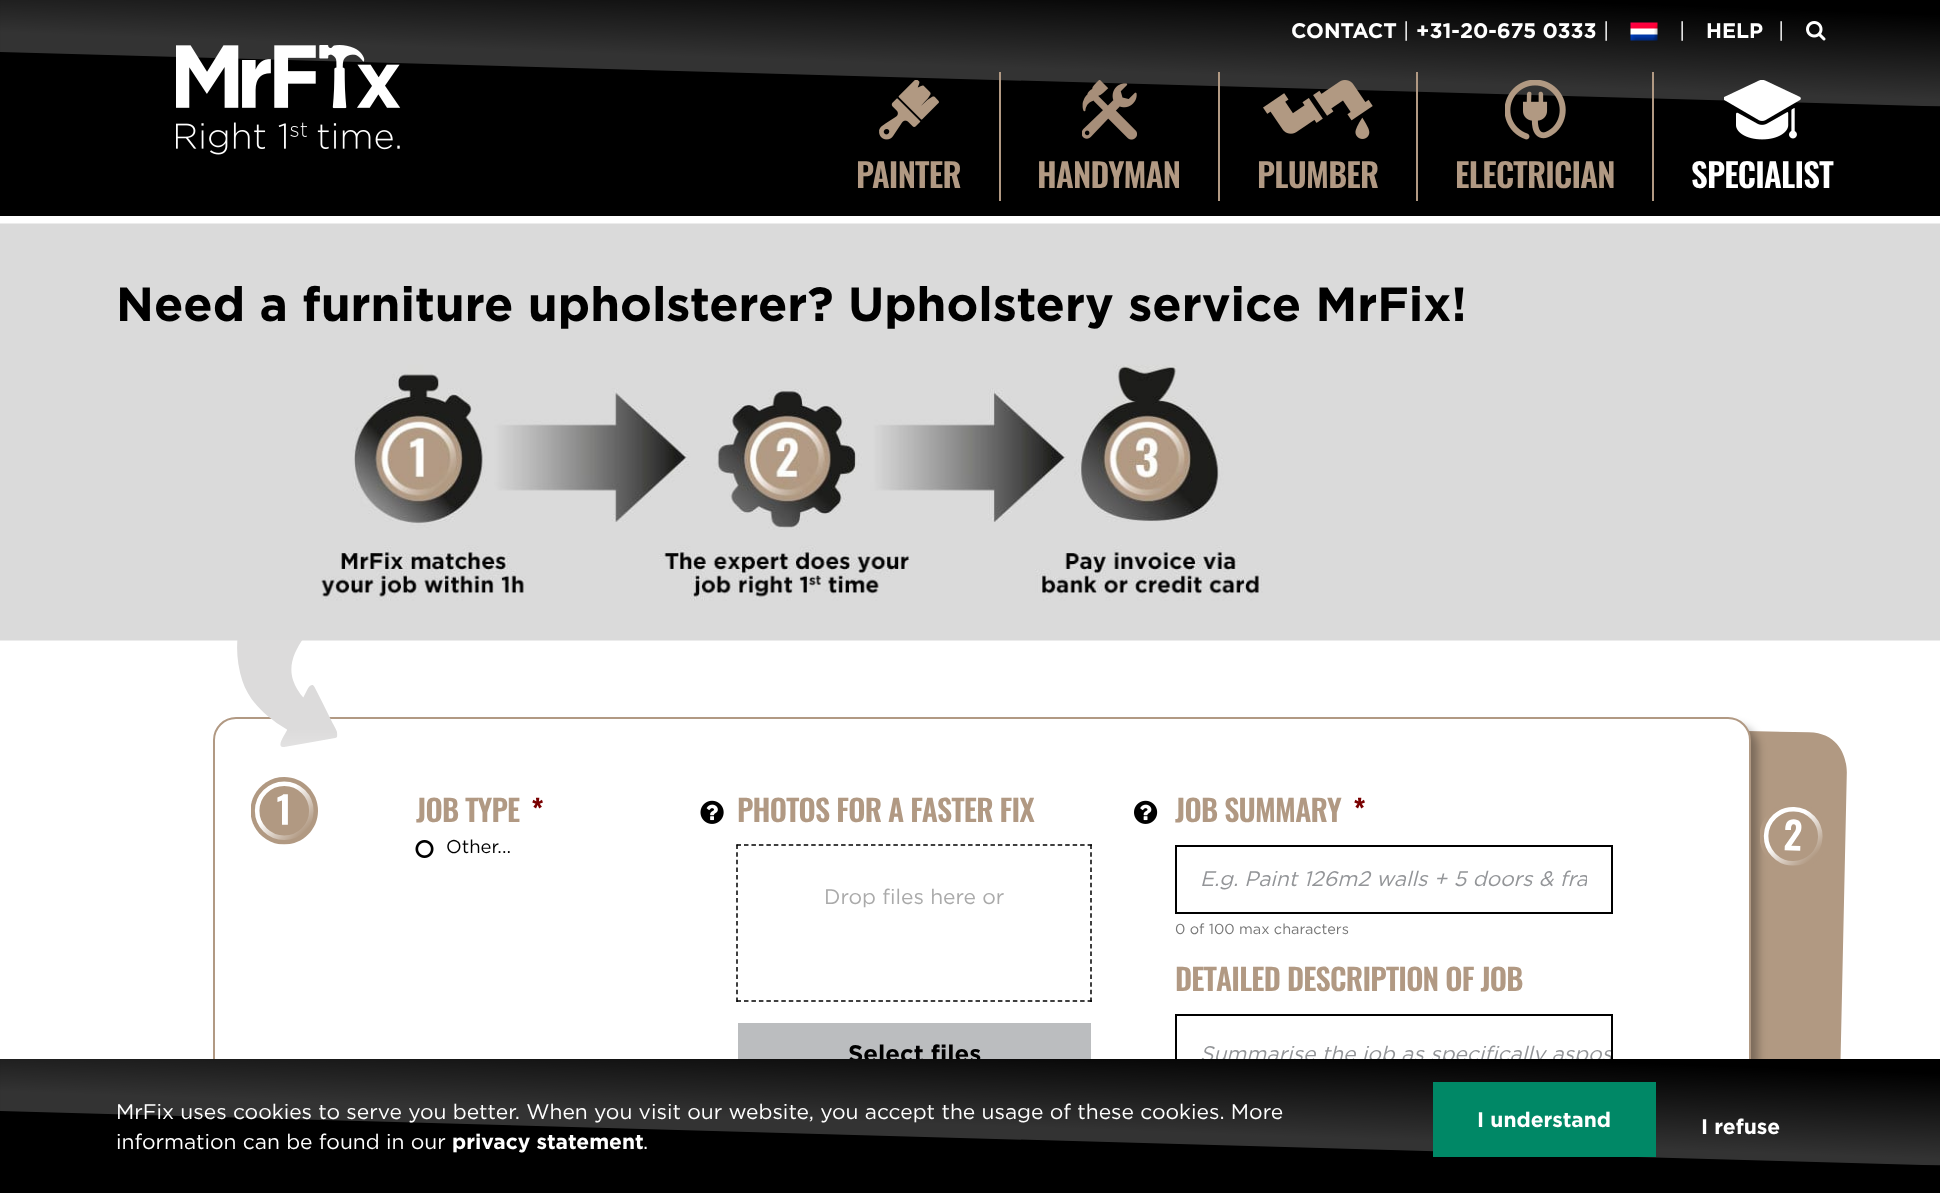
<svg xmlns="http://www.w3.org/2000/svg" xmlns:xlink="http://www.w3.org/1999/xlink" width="1940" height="1193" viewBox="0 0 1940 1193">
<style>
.cls-1{font:bold 21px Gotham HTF;fill:#ffffff}
.cls-2{font:21px Gotham HTF;fill:#ffffff}
.cls-3{font:600 33px Oswald;letter-spacing:-0.75px;fill:#b19983}
.cls-4{font:600 33px Oswald;letter-spacing:-0.75px;fill:#ffffff}
.cls-5{font:bold 48px Gotham HTF;fill:#000000}
.cls-6{font:600 30px Oswald;letter-spacing:-0.75px;fill:#b19983}
.cls-7{font:600 30px Oswald;letter-spacing:-0.75px;fill:#790000}
.cls-8{font:18.5px Gotham HTF;fill:#000000}
.cls-9{font:21px Gotham HTF;fill:#aaaaaa}
.cls-10{font:bold 24px Gotham HTF;fill:#000000}
.cls-11{font:italic 21px Gotham HTF;fill:#939598}
.cls-12{font:14.5px Gotham HTF;fill:#767676}
</style>
<defs>
<clipPath id="clip1"><rect x="1200" y="867" width="387" height="24"/></clipPath>
<clipPath id="clip2"><rect x="1176" y="1016" width="435" height="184"/></clipPath>
</defs>
<rect width="100%" height="100%" fill="#ffffff"/>
<rect fill="#000000" x="0" y="0" width="1940" height="216"/>
<image xlink:href="image0.png" x="0" y="0" width="1940" height="107"/>
<image xlink:href="image1.png" x="1630" y="22" width="28" height="19"/>
<image xlink:href="image2.png" x="1806" y="21" width="20" height="20"/>
<image xlink:href="image3.png" x="176" y="45" width="225" height="110"/>
<image xlink:href="image4.png" x="879" y="80" width="60" height="60"/>
<rect fill="#b19983" x="999" y="72" width="2" height="129"/>
<image xlink:href="image5.png" x="1082" y="80" width="55" height="60"/>
<rect fill="#b19983" x="1218" y="72" width="2" height="129"/>
<image xlink:href="image6.png" x="1263" y="80" width="110" height="59"/>
<rect fill="#b19983" x="1416" y="72" width="2" height="129"/>
<image xlink:href="image7.png" x="1505" y="80" width="61" height="60"/>
<rect fill="#b19983" x="1652" y="72" width="2" height="129"/>
<image xlink:href="image8.png" x="1724" y="80" width="77" height="60"/>
<image xlink:href="image9.png" x="0" y="223" width="1940" height="418"/>
<image xlink:href="image16.png" x="1749" y="731" width="98" height="328"/>
<rect fill="#000000" fill-opacity="0.3" filter="blur(4px)" x="221" y="725" width="1537" height="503" rx="23"/>
<rect fill="#ffffff" stroke="#b19983" stroke-width="2" x="214" y="718" width="1536" height="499" rx="22"/>
<image xlink:href="image10.png" x="237" y="640" width="101" height="107"/>
<image xlink:href="image11.png" x="251" y="777" width="67" height="68"/>
<image xlink:href="image12.png" x="415" y="840" width="19" height="18"/>
<image xlink:href="image13.png" x="700" y="800" width="24" height="24"/>
<path fill="none" stroke="#000000" stroke-width="1.5" stroke-dasharray="4.5 2.97" d="M736.5 845H1092"/>
<path fill="none" stroke="#000000" stroke-width="1.5" stroke-dasharray="4.5 3.15" d="M1091 844.5V1002"/>
<path fill="none" stroke="#000000" stroke-width="1.5" stroke-dasharray="4.5 2.97" d="M736.5 1001H1092"/>
<path fill="none" stroke="#000000" stroke-width="1.5" stroke-dasharray="4.5 3.15" d="M737 844.5V1002"/>
<rect fill="#bbbdbf" x="738" y="1023" width="353" height="36"/>
<image xlink:href="image14.png" x="1134" y="800" width="24" height="24"/>
<rect fill="none" stroke="#000000" stroke-width="2" x="1176" y="846" width="436" height="67"/>
<rect fill="none" stroke="#000000" stroke-width="2" x="1176" y="1015" width="436" height="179"/>
<image xlink:href="image15.png" x="1760" y="807" width="63" height="59"/>
<text class="cls-1" x="1291" y="38">CONTACT</text>
<text class="cls-2" x="1403" y="38">|</text>
<text class="cls-1" x="1416" y="38">+31-20-675 0333</text>
<text class="cls-2" x="1603" y="38">|</text>
<text class="cls-2" x="1679" y="38">|</text>
<text class="cls-1" x="1706" y="38">HELP</text>
<text class="cls-2" x="1778" y="38">|</text>
<text class="cls-3" x="856" y="188">PAINTER</text>
<text class="cls-3" x="1037" y="188">HANDYMAN</text>
<text class="cls-3" x="1257" y="188">PLUMBER</text>
<text class="cls-3" x="1455" y="188">ELECTRICIAN</text>
<text class="cls-4" x="1691" y="188">SPECIALIST</text>
<text class="cls-5" x="116" y="321">Need a furniture upholsterer? Upholstery service MrFix!</text>
<text class="cls-6" x="416" y="822">JOB TYPE</text>
<text class="cls-7" x="531" y="822">*</text>
<text class="cls-8" x="446" y="853">Other...</text>
<text class="cls-6" x="737" y="822">PHOTOS FOR A FASTER FIX</text>
<text class="cls-9" x="824" y="904">Drop files here or</text>
<text class="cls-10" x="848" y="1062">Select files</text>
<text class="cls-6" x="1175" y="822">JOB SUMMARY</text>
<text class="cls-7" x="1353" y="822">*</text>
<g clip-path="url(#clip1)">
<text class="cls-11" x="1200" y="886">E.g. Paint 126m2 walls + 5 doors &amp; fra</text>
</g>
<text class="cls-12" x="1175" y="934">0 of 100 max characters</text>
<text class="cls-6" x="1175" y="991">DETAILED DESCRIPTION OF JOB</text>
<text class="cls-11" x="1200" y="1061">Summarise the job as specifically as</text>
<g clip-path="url(#clip2)">
<text class="cls-11" x="1574" y="1061">pos</text>
</g>
<rect fill="#000000" x="0" y="1059" width="1940" height="134"/>
<image xlink:href="image0.png" x="0" y="1059" width="1940" height="107"/>
<text class="cls-2"><tspan x="116" y="1119">MrFix uses cookies to serve you better. When you visit our website, you accept the usage of these cookies. More</tspan><tspan x="116" y="1149">information can be found in our</tspan></text>
<text class="cls-1" x="452" y="1149">privacy statement</text>
<text class="cls-2" x="643" y="1149">.</text>
<rect fill="#008866" x="1433" y="1082" width="223" height="75"/>
<text class="cls-1" x="1477" y="1127">I understand</text>
<text class="cls-1" x="1701" y="1134">I refuse</text>
</svg>
